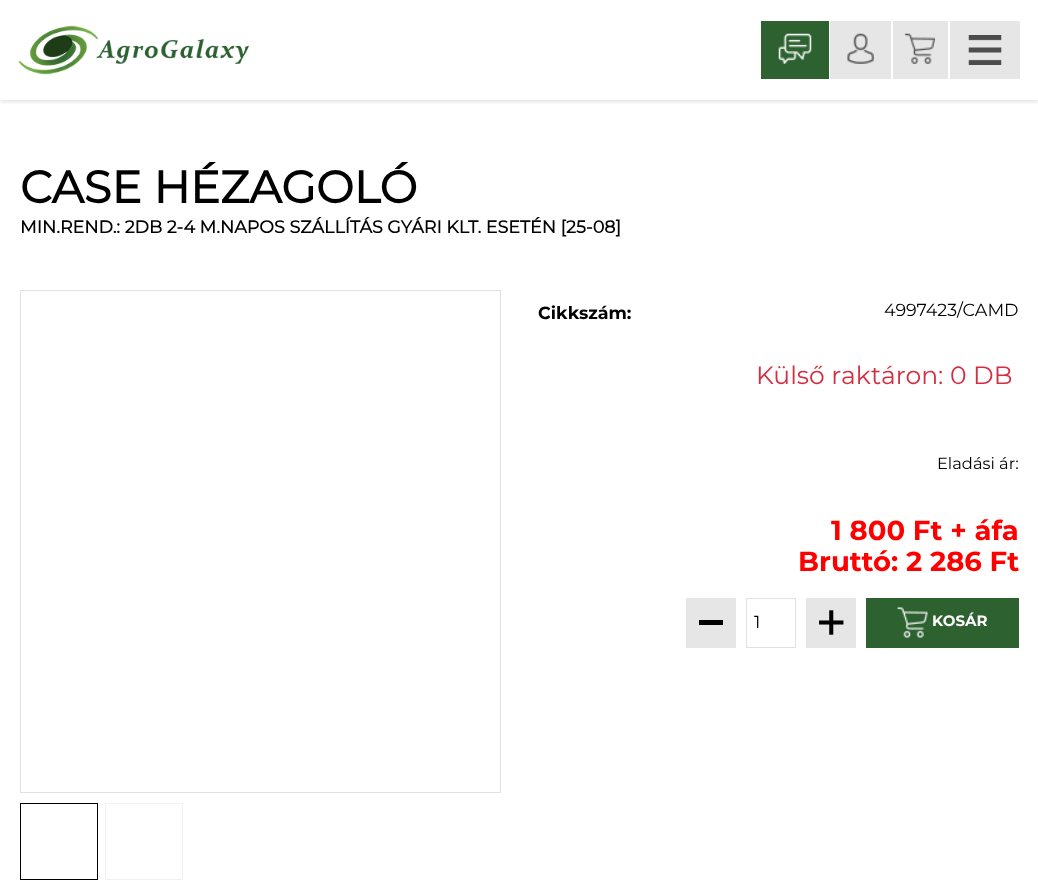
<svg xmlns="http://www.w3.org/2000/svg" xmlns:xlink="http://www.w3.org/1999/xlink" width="1038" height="894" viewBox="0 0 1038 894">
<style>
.cls-1{font:bold 45px Montserrat;fill:#000000}
.cls-2{font:bold 17.5px Montserrat;fill:#000000}
.cls-3{font:bold 17.5px 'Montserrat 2';fill:#000000}
.cls-4{font:17.5px Montserrat;fill:#000000}
.cls-5{font:25px Montserrat;fill:#d32e41}
.cls-6{font:16.25px Montserrat;fill:#000000}
.cls-7{font:bold 27.5px 'Montserrat 2';fill:#ff0000}
.cls-8{font:bold 15px 'Montserrat 2';fill:#ffffff}
</style>
<defs>
<clipPath id="clip1"><rect x="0" y="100" width="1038" height="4"/></clipPath>
</defs>
<rect width="100%" height="100%" fill="#ffffff"/>
<g clip-path="url(#clip1)">
<rect fill="#000000" fill-opacity="0.2" filter="blur(3px)" x="0" y="0" width="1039" height="100"/>
</g>
<image xlink:href="image0.png" x="18" y="25" width="231" height="50"/>
<rect fill="#2d6130" x="761" y="21" width="68" height="58"/>
<image xlink:href="image1.png" x="778" y="33" width="34" height="31"/>
<rect fill="#e6e6e6" x="830" y="21" width="61" height="58"/>
<image xlink:href="image2.png" x="847" y="33" width="27" height="31"/>
<rect fill="#e6e6e6" x="893" y="21" width="55" height="58"/>
<image xlink:href="image3.png" x="905" y="33" width="30" height="31"/>
<rect fill="#e6e6e6" x="950" y="21" width="70" height="58"/>
<image xlink:href="image4.png" x="968" y="35" width="34" height="30"/>
<rect fill="none" stroke="#dee2e6" x="20.5" y="290.5" width="480" height="502"/>
<rect fill="none" stroke="#000000" x="20.5" y="803.5" width="77" height="76"/>
<rect fill="none" stroke="#eff1f3" x="105.5" y="803.5" width="77" height="76"/>
<rect fill="#e6e6e6" x="686" y="598" width="50" height="50"/>
<rect fill="#000000" x="699" y="620" width="24" height="5"/>
<rect fill="none" stroke="#dee2e6" x="746.5" y="598.5" width="49" height="49"/>
<rect fill="#e6e6e6" x="806" y="598" width="50" height="50"/>
<image xlink:href="image5.png" x="819" y="610" width="25" height="25"/>
<rect fill="#2d6130" x="866" y="598" width="153" height="50"/>
<image xlink:href="image6.png" x="897" y="607" width="31" height="31"/>
<text class="cls-1" x="20" y="203">CASE HÉZAGOLÓ</text>
<text class="cls-2" x="20" y="233">MIN.REND.: 2DB 2-4 M.NAPOS SZÁLLÍTÁS GYÁRI KLT. ESETÉN [25-08]</text>
<text class="cls-3" x="538" y="319">Cikkszám:</text>
<text class="cls-4" x="884" y="316">4997423/CAMD</text>
<text class="cls-5" x="756" y="384">Külső raktáron: 0 DB</text>
<text class="cls-6" x="937" y="469">Eladási ár:</text>
<text class="cls-7" x="831" y="540">1 800 Ft + áfa</text>
<text class="cls-7" x="798" y="571">Bruttó: 2 286 Ft</text>
<text class="cls-4" x="754" y="628">1</text>
<text class="cls-8" x="932" y="626">KOSÁR</text>
</svg>
